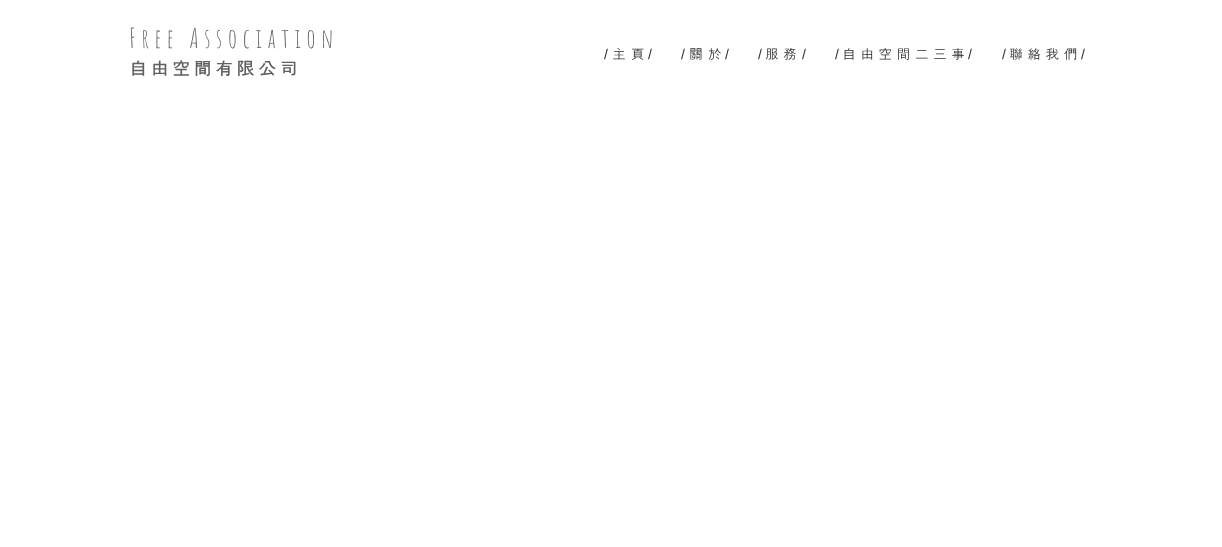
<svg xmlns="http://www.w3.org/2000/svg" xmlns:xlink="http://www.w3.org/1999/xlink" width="1222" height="547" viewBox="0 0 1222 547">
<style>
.cls-1{font:27px Amatic SC;letter-spacing:5.4px;fill:#605e5e}
.cls-2{font:bold 18px Dotum;letter-spacing:3.5px;fill:#605e5e}
.cls-3{font:14px Liberation Sans;fill:#2f2e2e}
.cls-4{font:14px Dotum;fill:#2f2e2e}
</style>
<rect width="100%" height="100%" fill="#ffffff"/>
<text class="cls-1" x="129" y="48">Free Association</text>
<text class="cls-2" x="129" y="75">自由空間有限公司</text>
<text class="cls-3" x="604" y="59">/</text>
<text class="cls-4" x="612" y="59">主 頁</text>
<text class="cls-3" x="648" y="59">/</text>
<text class="cls-3" x="681" y="59">/</text>
<text class="cls-4" x="689" y="59">關 於</text>
<text class="cls-3" x="725" y="59">/</text>
<text class="cls-3" x="758" y="59">/</text>
<text class="cls-4" x="765" y="59" word-spacing="-1">服 務</text>
<text class="cls-3" x="802" y="59">/</text>
<text class="cls-3" x="835" y="59">/</text>
<text class="cls-4" x="842" y="59" word-spacing="-0.5">自 由 空 間 二 三 事</text>
<text class="cls-3" x="968" y="59">/</text>
<text class="cls-3" x="1002" y="59">/</text>
<text class="cls-4" x="1009" y="59" word-spacing="-0.5">聯 絡 我 們</text>
<text class="cls-3" x="1081" y="59">/</text>
</svg>
